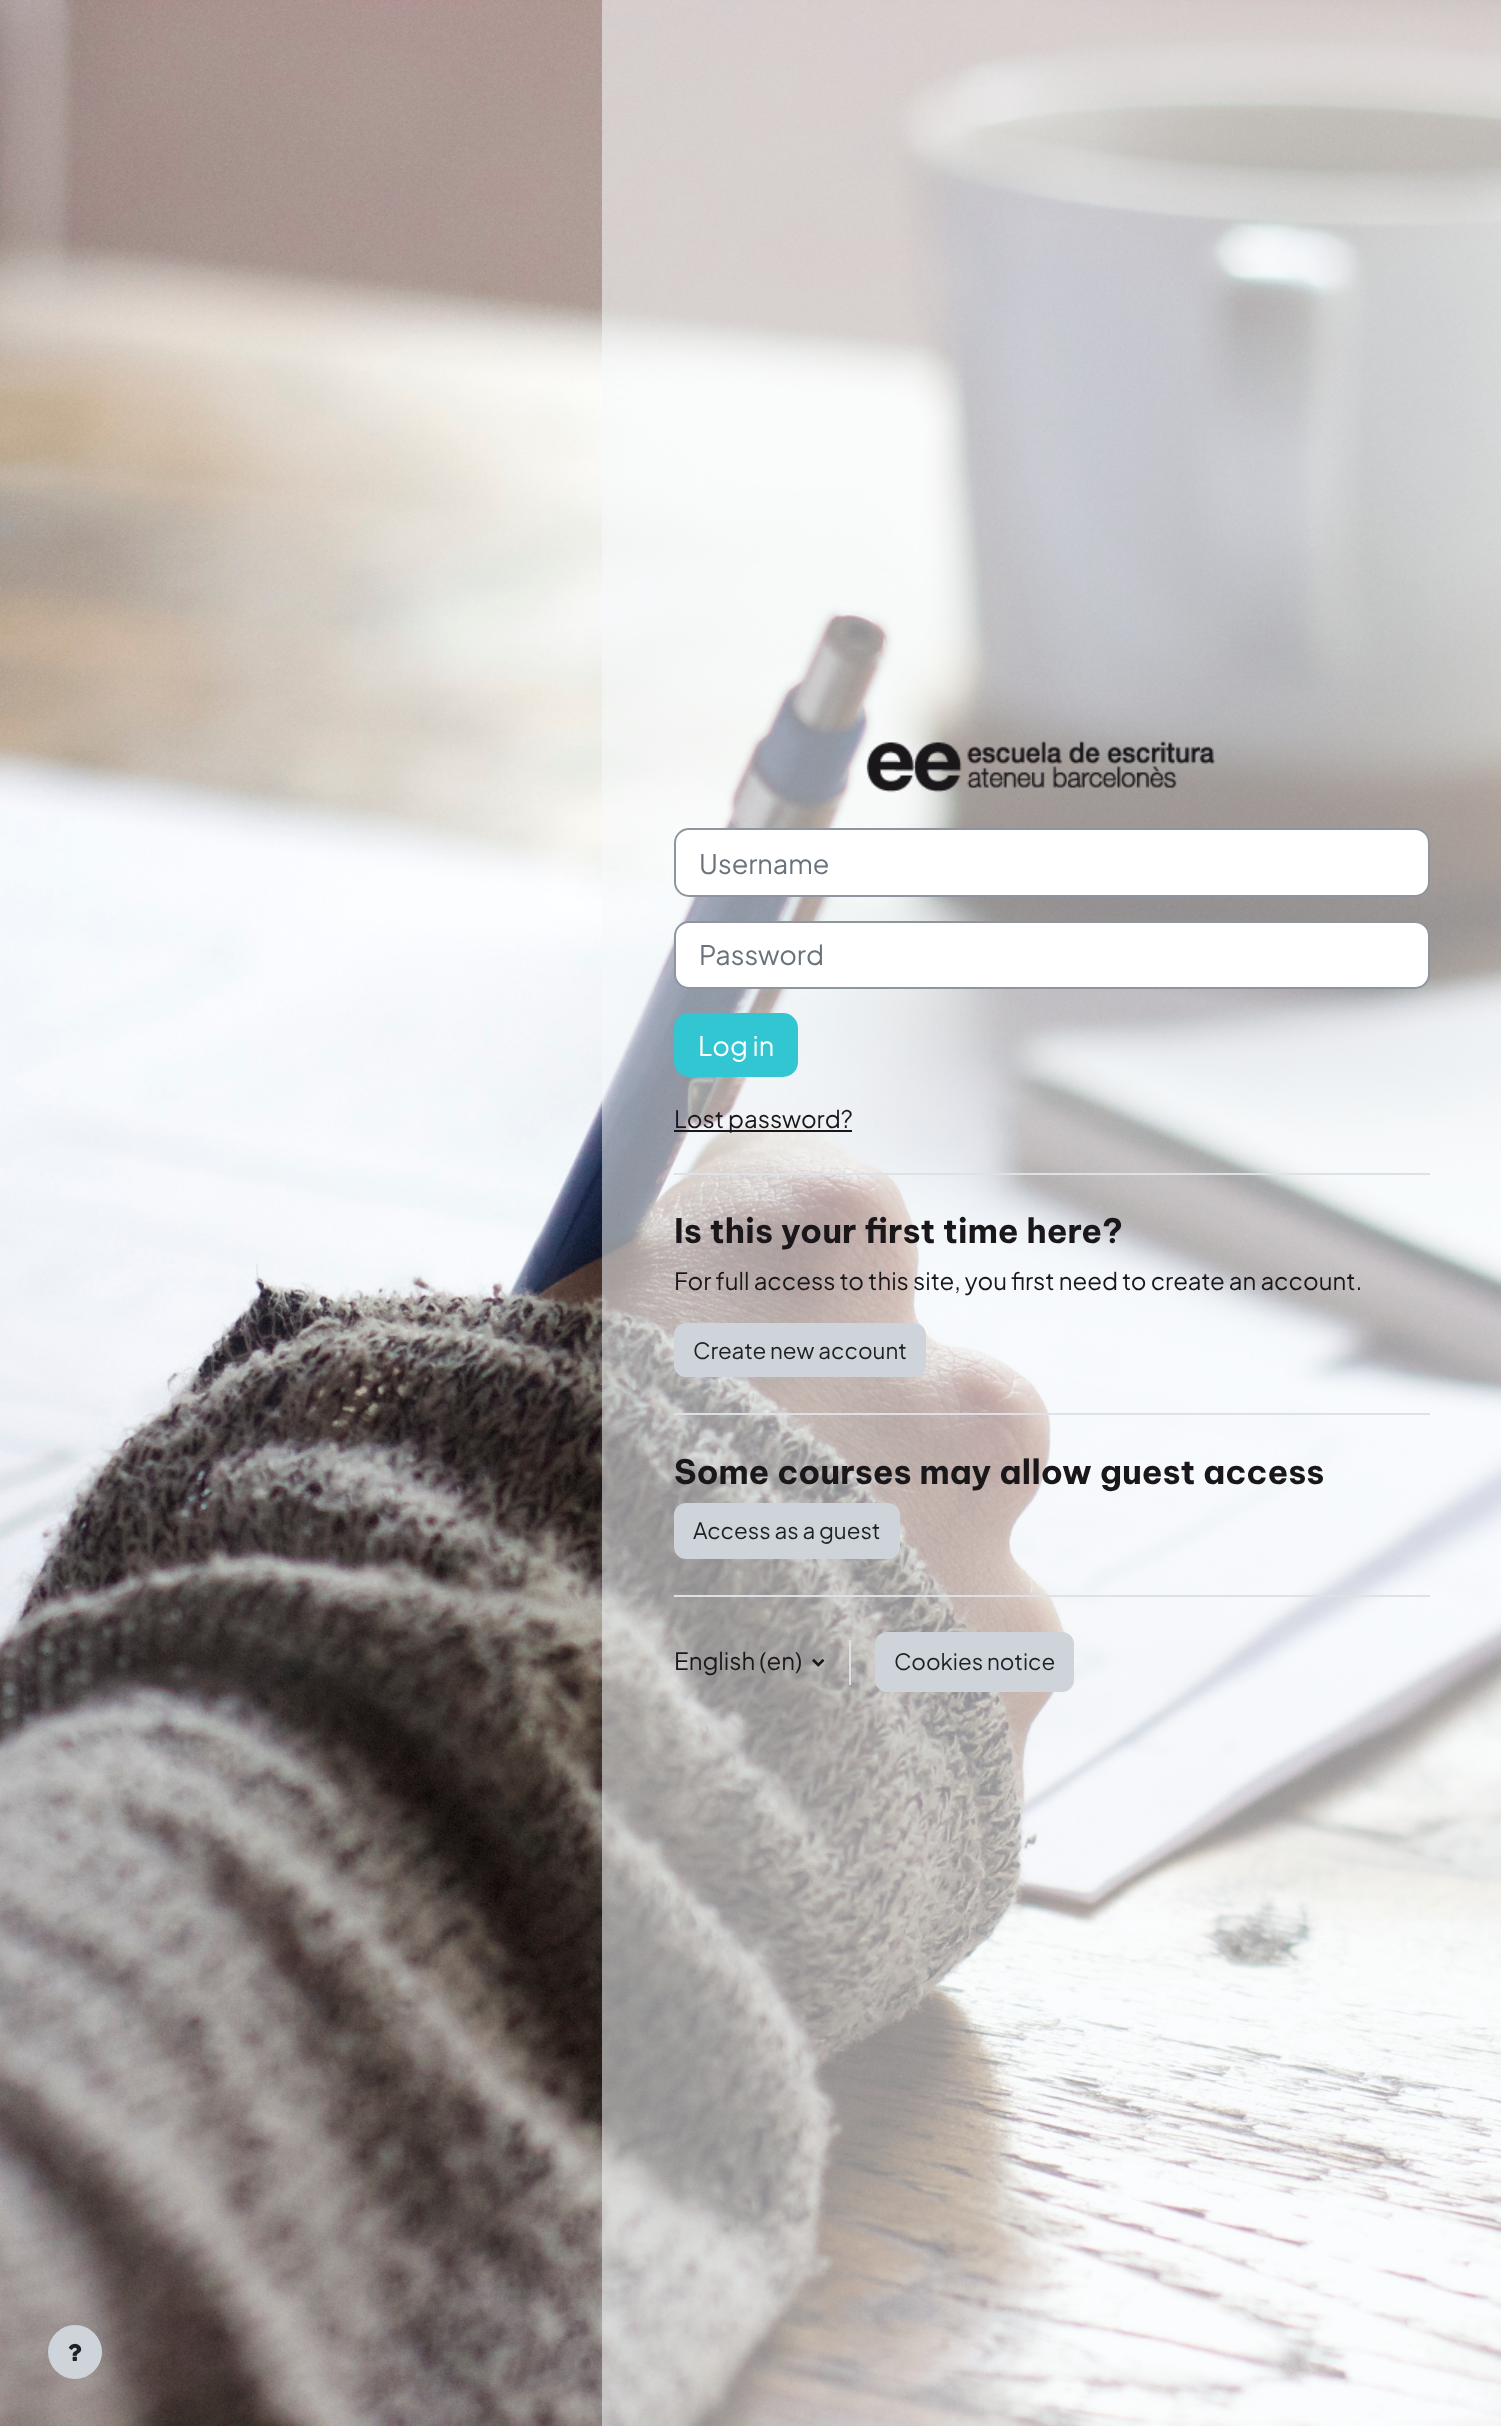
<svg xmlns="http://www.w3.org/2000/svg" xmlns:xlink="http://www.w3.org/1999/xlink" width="1501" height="2426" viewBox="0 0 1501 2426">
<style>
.cls-1{font:27px Plus Jakarta Sans;fill:#6a737b}
.cls-2{font:27px Plus Jakarta Sans;fill:#ffffff}
.cls-3{font:24px Plus Jakarta Sans;fill:#1a171b}
.cls-4{font:bold 33.75px Be Vietnam Pro;fill:#1a171b}
.cls-5{font:22.4px Plus Jakarta Sans;fill:#1d2125}
</style>
<rect width="100%" height="100%" fill="#ffffff"/>
<image xlink:href="image0.png" x="0" y="0" width="1501" height="2426"/>
<rect fill="#f6f9fb" fill-opacity="0.55" x="602" y="0" width="899" height="2426"/>
<image xlink:href="image1.png" x="866" y="740" width="350" height="53"/>
<rect fill="#ffffff" stroke="#8f959e" stroke-width="2" x="675" y="829" width="754" height="67" rx="14"/>
<rect fill="#ffffff" stroke="#8f959e" stroke-width="2" x="675" y="922" width="754" height="66" rx="14"/>
<rect fill="#32c5d2" x="674" y="1013" width="124" height="64" rx="15"/>
<rect fill="#1a171b" x="674" y="1130" width="178" height="2"/>
<rect fill="#dee2e6" x="674" y="1173" width="756" height="2"/>
<rect fill="#ced4da" stroke="#ced4da" stroke-width="2" x="675" y="1324" width="250" height="52" rx="11"/>
<rect fill="#dee2e6" x="674" y="1413" width="756" height="2"/>
<rect fill="#ced4da" stroke="#ced4da" stroke-width="2" x="675" y="1504" width="224" height="54" rx="11"/>
<rect fill="#dee2e6" x="674" y="1595" width="756" height="2"/>
<image xlink:href="image2.png" x="812" y="1659" width="13" height="8"/>
<rect fill="#dee2e6" x="849" y="1640" width="2" height="45"/>
<rect fill="#ced4da" stroke="#ced4da" stroke-width="2" x="876" y="1633" width="197" height="58" rx="11"/>
<circle fill="#ced4da" cx="75" cy="2352" r="27"/>
<image xlink:href="image3.png" x="68" y="2343" width="14" height="18"/>
<text class="cls-1" x="699" y="874">Username</text>
<text class="cls-1" x="699" y="965">Password</text>
<text class="cls-2" x="698" y="1056">Log in</text>
<text class="cls-3" x="674" y="1128">Lost password?</text>
<text class="cls-4" x="674" y="1243">Is this your first time here?</text>
<text class="cls-3" x="674" y="1290">For full access to this site, you first need to create an account.</text>
<text class="cls-5" x="693" y="1359">Create new account</text>
<text class="cls-4" x="674" y="1484">Some courses may allow guest access</text>
<text class="cls-5" x="693" y="1539">Access as a guest</text>
<text class="cls-3" x="674" y="1670">English (en)</text>
<text class="cls-5" x="894" y="1670">Cookies notice</text>
</svg>
